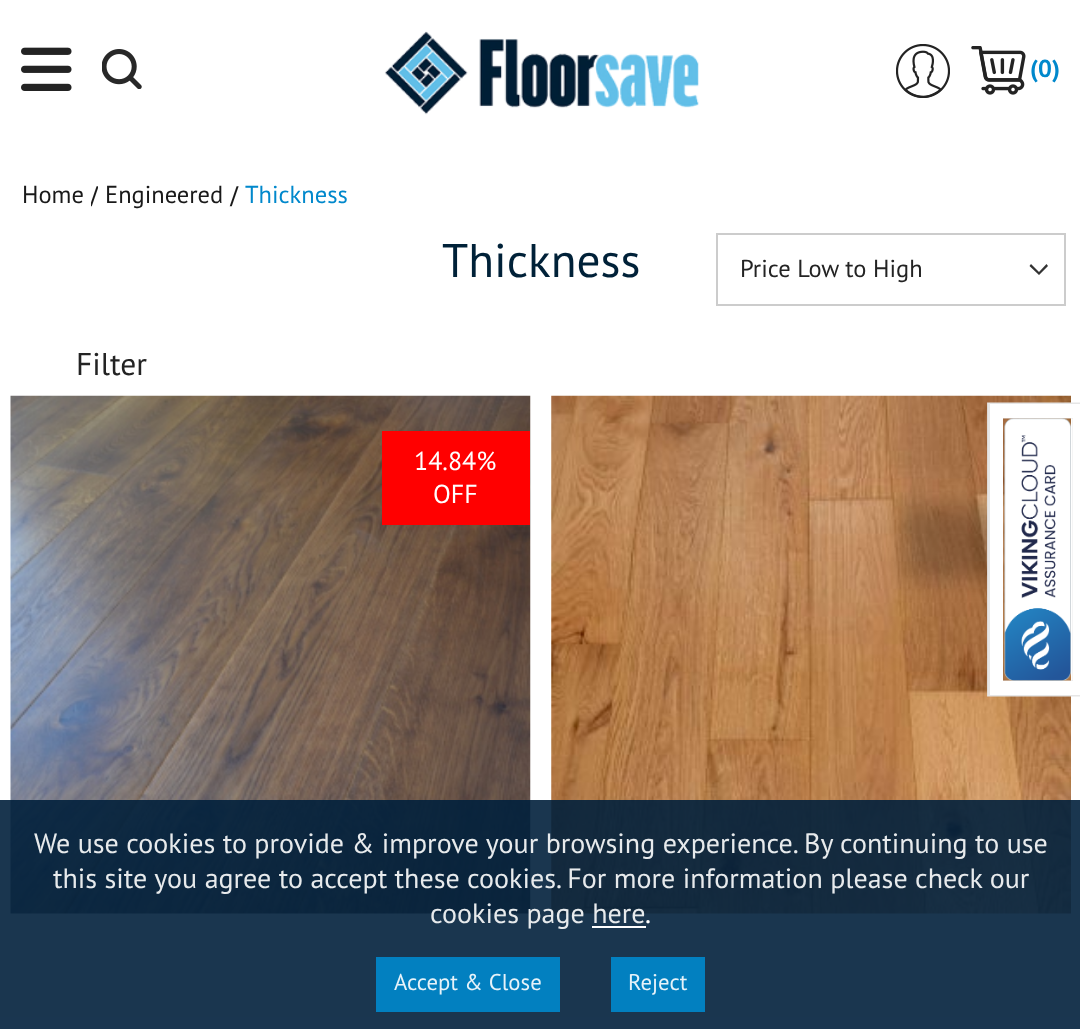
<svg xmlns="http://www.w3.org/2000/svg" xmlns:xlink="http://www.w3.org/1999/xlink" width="1080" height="1029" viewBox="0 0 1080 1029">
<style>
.cls-1{font:bold 24.5px PT Sans;fill:#0088cc}
.cls-2{font:24.5px PT Sans;fill:#191919}
.cls-3{font:bold 30px Liberation Serif;fill:#191919}
.cls-4{font:24.5px PT Sans;fill:#0088cc}
.cls-5{font:47.25px PT Sans;fill:#002138}
.cls-6{font:24.5px PT Sans;fill:#232323}
.cls-7{font:31.5px PT Sans;fill:#232323}
.cls-8{font:26px PT Sans;fill:#ffffff}
.cls-9{font:28px PT Sans;fill:#e7eaec}
.cls-10{font:28px PT Sans;fill:#ffffff}
.cls-11{font:22.75px PT Sans;fill:#e6f2f9}
</style>
<defs>
<clipPath id="clip1"><path d="M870 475H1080V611H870ZM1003 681V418H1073V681Z" clip-rule="evenodd"/></clipPath>
<clipPath id="clip2"><rect x="91" y="182" width="7" height="32"/></clipPath>
</defs>
<rect width="100%" height="100%" fill="#ffffff"/>
<image xlink:href="image0.png" x="21" y="47" width="51" height="44"/>
<image xlink:href="image1.png" x="102" y="49" width="40" height="40"/>
<image xlink:href="image2.png" x="384" y="31" width="315" height="84"/>
<image xlink:href="image3.png" x="896" y="44" width="54" height="54"/>
<image xlink:href="image4.png" x="971" y="46" width="55" height="49"/>
<path fill="#333333" fill-rule="evenodd" d="M1039 275L1048 266L1046.5 264L1039 272L1031 264L1029.5 266Z"/>
<rect fill="none" stroke="#cccccc" stroke-width="2" x="717" y="234" width="348" height="71"/>
<image xlink:href="image5.png" x="10" y="395" width="521" height="519"/>
<rect fill="#ff0000" x="382" y="431" width="148" height="94"/>
<image xlink:href="image6.png" x="551" y="395" width="520" height="519"/>
<rect fill="#01203c" fill-opacity="0.9" x="0" y="800" width="1080" height="229"/>
<rect fill="#0088cc" fill-opacity="0.9" x="376" y="957" width="184" height="55"/>
<rect fill="#0088cc" fill-opacity="0.9" x="611" y="957" width="94" height="55"/>
<g clip-path="url(#clip1)">
<rect fill="#000000" fill-opacity="0.2" filter="blur(10.5px)" x="903" y="508" width="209" height="70"/>
</g>
<path fill="none" stroke="#e6e6e6" stroke-width="15.8" d="M995 688.5V410.5H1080.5V688.5Z"/>
<path fill="#ffffff" fill-rule="evenodd" d="M990 404V695H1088V404ZM1003 681H1073V418H1003Z"/>
<image xlink:href="image7.png" x="1004" y="418" width="67" height="263"/>
<text class="cls-1" x="1030" y="77">(0)</text>
<text class="cls-2" x="22" y="203">Home</text>
<g clip-path="url(#clip2)">
<text class="cls-3" x="90" y="206">/</text>
</g>
<text class="cls-2" x="105" y="203">Engineered</text>
<text class="cls-3" x="230" y="206">/</text>
<text class="cls-4" x="245" y="203">Thickness</text>
<text class="cls-5" x="442" y="277">Thickness</text>
<text class="cls-6" x="740" y="277">Price Low to High</text>
<text class="cls-7" x="76" y="375">Filter</text>
<text class="cls-8" x="414" y="470">14.84%</text>
<text class="cls-8" x="433" y="503">OFF</text>
<text class="cls-9" x="34" y="853">We use cookies to provide &amp; improve your browsing experience. By continuing to use</text>
<text class="cls-9" x="53" y="888">this site you agree to accept these cookies. For more information please check our</text>
<text class="cls-9" x="430" y="923">cookies page here</text>
<text class="cls-10" x="645" y="923">.</text>
<rect fill="#ffffff" x="592" y="926" width="54" height="2"/>
<text class="cls-11" x="394" y="990">Accept &amp; Close</text>
<text class="cls-11" x="628" y="990">Reject</text>
</svg>
